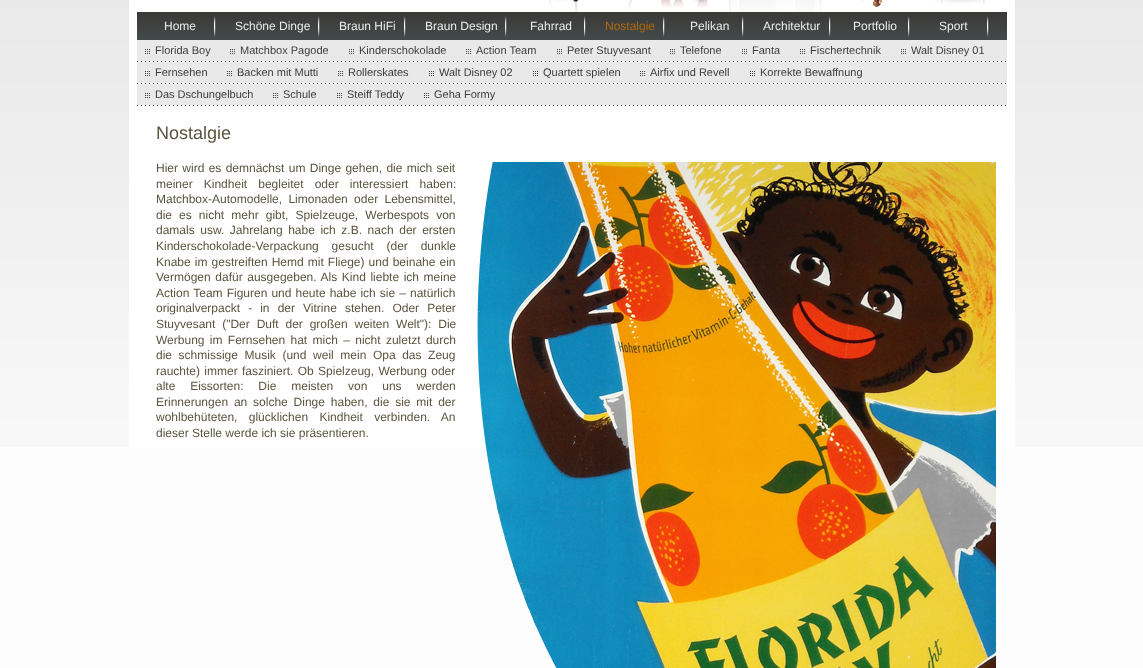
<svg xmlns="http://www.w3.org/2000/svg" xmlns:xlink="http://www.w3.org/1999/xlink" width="1143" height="668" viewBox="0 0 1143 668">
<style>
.cls-1{font:12px Liberation Sans;fill:#ebebeb}
.cls-2{font:12px Liberation Sans;fill:#ad690c}
.cls-3{font:11px Liberation Sans;fill:#3c3c3b}
.cls-4{font:18px Liberation Sans;fill:#5b533e}
.cls-5{font:12px Liberation Sans;fill:#5b533e}
</style>
<rect width="100%" height="100%" fill="#fdfdfd"/>
<image xlink:href="image0.png" x="0" y="0" width="1143" height="447"/>
<rect fill="#ffffff" x="129" y="0" width="886" height="447"/>
<image xlink:href="image1.png" x="548" y="0" width="443" height="12"/>
<image xlink:href="image2.png" x="137" y="12" width="870" height="28"/>
<image xlink:href="image3.png" x="214" y="16" width="2" height="21"/>
<image xlink:href="image4.png" x="318" y="16" width="2" height="21"/>
<image xlink:href="image3.png" x="404" y="16" width="2" height="21"/>
<image xlink:href="image4.png" x="505" y="16" width="2" height="21"/>
<image xlink:href="image3.png" x="584" y="16" width="2" height="21"/>
<image xlink:href="image4.png" x="663" y="16" width="2" height="21"/>
<image xlink:href="image3.png" x="742" y="16" width="2" height="21"/>
<image xlink:href="image3.png" x="829" y="16" width="2" height="21"/>
<image xlink:href="image3.png" x="908" y="16" width="2" height="21"/>
<image xlink:href="image3.png" x="987" y="16" width="2" height="21"/>
<image xlink:href="image5.png" x="137" y="40" width="870" height="66"/>
<image xlink:href="image6.png" x="145" y="49" width="5" height="5"/>
<image xlink:href="image7.png" x="230" y="49" width="6" height="5"/>
<image xlink:href="image6.png" x="349" y="49" width="5" height="5"/>
<image xlink:href="image7.png" x="466" y="49" width="6" height="5"/>
<image xlink:href="image6.png" x="557" y="49" width="5" height="5"/>
<image xlink:href="image7.png" x="670" y="49" width="6" height="5"/>
<image xlink:href="image6.png" x="742" y="49" width="5" height="5"/>
<image xlink:href="image7.png" x="800" y="49" width="6" height="5"/>
<image xlink:href="image7.png" x="901" y="49" width="6" height="5"/>
<image xlink:href="image6.png" x="145" y="71" width="5" height="5"/>
<image xlink:href="image6.png" x="227" y="71" width="5" height="5"/>
<image xlink:href="image7.png" x="338" y="71" width="6" height="5"/>
<image xlink:href="image7.png" x="429" y="71" width="6" height="5"/>
<image xlink:href="image6.png" x="533" y="71" width="5" height="5"/>
<image xlink:href="image7.png" x="640" y="71" width="6" height="5"/>
<image xlink:href="image6.png" x="750" y="71" width="5" height="5"/>
<image xlink:href="image6.png" x="145" y="93" width="5" height="5"/>
<image xlink:href="image7.png" x="273" y="93" width="6" height="5"/>
<image xlink:href="image6.png" x="337" y="93" width="5" height="5"/>
<image xlink:href="image6.png" x="424" y="93" width="5" height="5"/>
<image xlink:href="image8.png" x="477" y="162" width="519" height="506"/>
<text class="cls-1" x="164" y="30">Home</text>
<text class="cls-1" x="235" y="30">Schöne Dinge</text>
<text class="cls-1" x="339" y="30">Braun HiFi</text>
<text class="cls-1" x="425" y="30">Braun Design</text>
<text class="cls-1" x="530" y="30">Fahrrad</text>
<text class="cls-2" x="605" y="30">Nostalgie</text>
<text class="cls-1" x="690" y="30">Pelikan</text>
<text class="cls-1" x="763" y="30">Architektur</text>
<text class="cls-1" x="853" y="30">Portfolio</text>
<text class="cls-1" x="939" y="30">Sport</text>
<text class="cls-3" x="155" y="54">Florida Boy</text>
<text class="cls-3" x="240" y="54">Matchbox Pagode</text>
<text class="cls-3" x="359" y="54">Kinderschokolade</text>
<text class="cls-3" x="476" y="54">Action Team</text>
<text class="cls-3" x="567" y="54">Peter Stuyvesant</text>
<text class="cls-3" x="680" y="54">Telefone</text>
<text class="cls-3" x="752" y="54">Fanta</text>
<text class="cls-3" x="810" y="54">Fischertechnik</text>
<text class="cls-3" x="911" y="54">Walt Disney 01</text>
<text class="cls-3" x="155" y="76">Fernsehen</text>
<text class="cls-3" x="237" y="76">Backen mit Mutti</text>
<text class="cls-3" x="348" y="76">Rollerskates</text>
<text class="cls-3" x="439" y="76">Walt Disney 02</text>
<text class="cls-3" x="543" y="76">Quartett spielen</text>
<text class="cls-3" x="650" y="76">Airfix und Revell</text>
<text class="cls-3" x="760" y="76">Korrekte Bewaffnung</text>
<text class="cls-3" x="155" y="98">Das Dschungelbuch</text>
<text class="cls-3" x="283" y="98">Schule</text>
<text class="cls-3" x="347" y="98">Steiff Teddy</text>
<text class="cls-3" x="434" y="98">Geha Formy</text>
<text class="cls-4" x="156" y="139">Nostalgie</text>
<text class="cls-5"><tspan x="156" y="172" word-spacing="1">Hier wird es demnächst um Dinge gehen, die mich seit</tspan><tspan x="156" y="188" word-spacing="7.75">meiner Kindheit begleitet oder interessiert haben:</tspan><tspan x="156" y="203" word-spacing="3">Matchbox-Automodelle, Limonaden oder Lebensmittel,</tspan><tspan x="156" y="219" word-spacing="3.75">die es nicht mehr gibt, Spielzeuge, Werbespots von</tspan><tspan x="156" y="234" word-spacing="2.25">damals usw. Jahrelang habe ich z.B. nach der ersten</tspan><tspan x="156" y="250" word-spacing="9.5">Kinderschokolade-Verpackung gesucht (der dunkle</tspan><tspan x="156" y="266" word-spacing="0.75">Knabe im gestreiften Hemd mit Fliege) und beinahe ein</tspan><tspan x="156" y="281" word-spacing="1.25">Vermögen dafür ausgegeben. Als Kind liebte ich meine</tspan><tspan x="156" y="297" word-spacing="0.75">Action Team Figuren und heute habe ich sie – natürlich</tspan><tspan x="156" y="312" word-spacing="4.75">originalverpackt - in der Vitrine stehen. Oder Peter</tspan><tspan x="156" y="328" word-spacing="3.5">Stuyvesant ("Der Duft der großen weiten Welt"): Die</tspan><tspan x="156" y="344" word-spacing="2">Werbung im Fernsehen hat mich – nicht zuletzt durch</tspan><tspan x="156" y="359" word-spacing="3.25">die schmissige Musik (und weil mein Opa das Zeug</tspan><tspan x="156" y="375" word-spacing="1">rauchte) immer fasziniert. Ob Spielzeug, Werbung oder</tspan><tspan x="156" y="390" word-spacing="11.5">alte Eissorten: Die meisten von uns werden</tspan><tspan x="156" y="406" word-spacing="2.5">Erinnerungen an solche Dinge haben, die sie mit der</tspan><tspan x="156" y="421" word-spacing="8">wohlbehüteten, glücklichen Kindheit verbinden. An</tspan><tspan x="156" y="437">dieser Stelle werde ich sie präsentieren.</tspan></text>
</svg>
